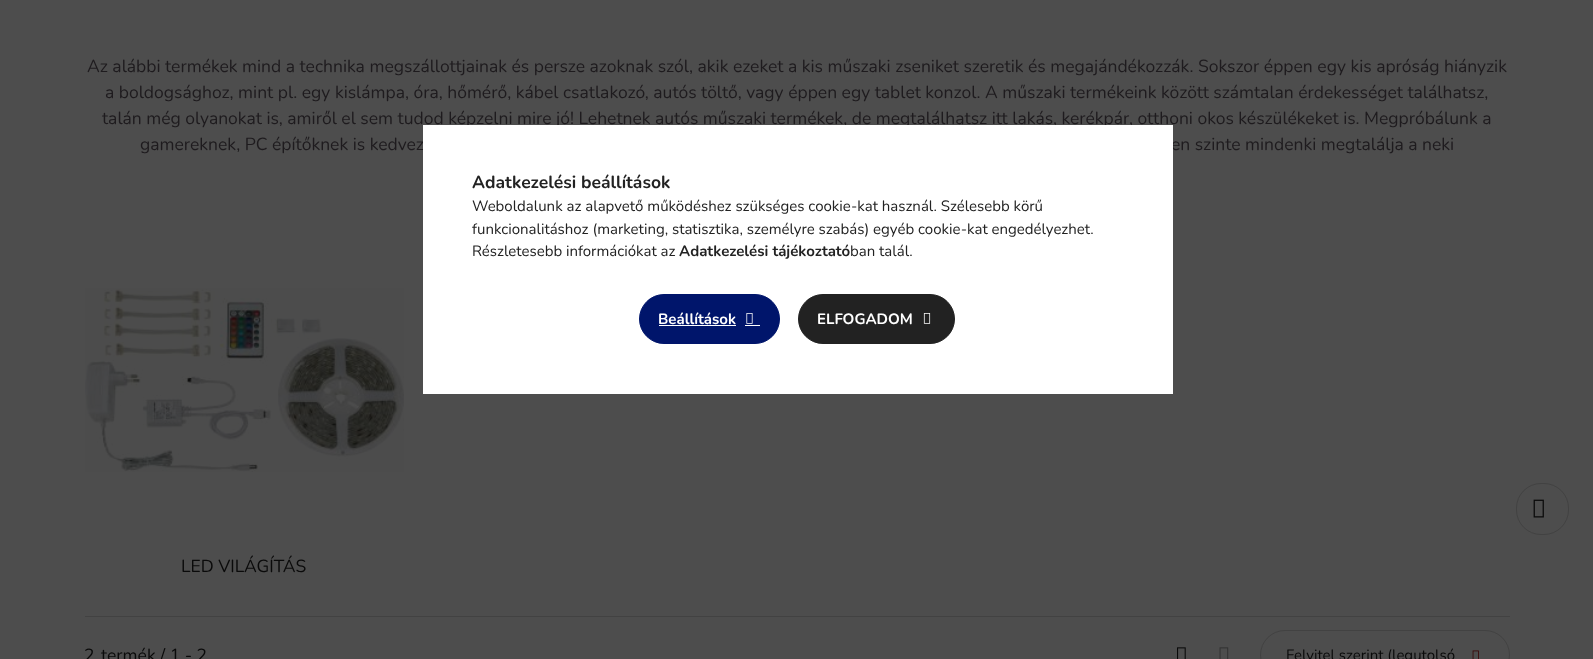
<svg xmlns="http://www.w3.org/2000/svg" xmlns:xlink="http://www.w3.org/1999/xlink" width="1593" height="659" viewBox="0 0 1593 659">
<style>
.cls-1{font:17.5px Nunito;fill:#1e1b1e}
.cls-2{font:17.5px Nunito;fill:#0a0a0a}
.cls-3{font:15px Nunito;fill:#0a0a0a}
.cls-4{font:bold 17.5px Nunito;fill:#222222}
.cls-5{font:15px Nunito;fill:#222222}
.cls-6{font:bold 15px Nunito;fill:#222222}
.cls-7{font:bold 15px Nunito;fill:#ffffff}
</style>
<rect width="100%" height="100%" fill="#4d4d4d"/>
<image xlink:href="image0.png" x="85" y="288" width="319" height="184"/>
<rect fill="#424242" x="85" y="616" width="1425" height="1"/>
<image xlink:href="image1.png" x="1177" y="647" width="9" height="12"/>
<image xlink:href="image2.png" x="1219" y="647" width="10" height="12"/>
<rect fill="none" stroke="#424242" x="1260.5" y="630.5" width="249" height="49" rx="24.5"/>
<image xlink:href="image3.png" x="1472" y="650" width="7" height="9"/>
<rect fill="none" stroke="#424242" x="1516.5" y="483.5" width="52" height="51" rx="24.5"/>
<image xlink:href="image6.png" x="1533" y="499" width="11" height="19"/>
<text class="cls-1" x="87" y="72">Az alábbi termékek mind a technika megszállottjainak és persze azoknak szól, akik ezeket a kis műszaki zseniket szeretik és megajándékozzák. Sokszor éppen egy kis apróság hiányzik</text>
<text class="cls-1" x="105" y="98">a boldogsághoz, mint pl. egy kislámpa, óra, hőmérő, kábel csatlakozó, autós töltő, vagy éppen egy tablet konzol. A műszaki termékeink között számtalan érdekességet találhatsz,</text>
<text class="cls-1" x="102" y="124">talán még olyanokat is, amiről el sem tudod képzelni mire jó! Lehetnek autós műszaki termékek, de megtalálhatsz itt lakás, kerékpár, otthoni okos készülékeket is. Megpróbálunk a</text>
<text class="cls-1" x="140" y="150">gamereknek, PC építőknek is kedvez</text>
<text class="cls-1" x="1171" y="150">en szinte mindenki megtalálja a neki</text>
<text class="cls-2" x="181" y="572">LED VILÁGÍTÁS</text>
<text class="cls-2" x="84" y="661">2</text>
<text class="cls-2" x="101" y="661">termék / 1 - 2</text>
<text class="cls-3" x="1286" y="660">Felvitel szerint (legutolsó</text>
<rect fill="#ffffff" x="423" y="125" width="750" height="269"/>
<text class="cls-4" x="472" y="188">Adatkezelési beállítások</text>
<text class="cls-5"><tspan x="472" y="211">Weboldalunk az alapvető működéshez szükséges cookie-kat használ. Szélesebb körű</tspan><tspan x="472" y="234">funkcionalitáshoz (marketing, statisztika, személyre szabás) egyéb cookie-kat engedélyezhet.</tspan><tspan x="472" y="256">Részletesebb információkat az</tspan></text>
<text class="cls-6" x="679" y="256">Adatkezelési tájékoztató</text>
<text class="cls-5" x="850" y="256">ban talál.</text>
<rect fill="#00156b" stroke="#00156b" x="639.5" y="294.5" width="140" height="49" rx="24.5"/>
<text class="cls-7" x="658" y="324">Beállítások</text>
<rect fill="#ffffff" x="659" y="325" width="77" height="1"/>
<image xlink:href="image4.png" x="746" y="313" width="7" height="11"/>
<rect fill="#ffffff" x="745" y="325" width="15" height="1"/>
<rect fill="#222222" stroke="#222222" x="798.5" y="294.5" width="156" height="49" rx="24.5"/>
<text class="cls-7" x="817" y="324">ELFOGADOM</text>
<image xlink:href="image5.png" x="923" y="313" width="8" height="11"/>
</svg>
